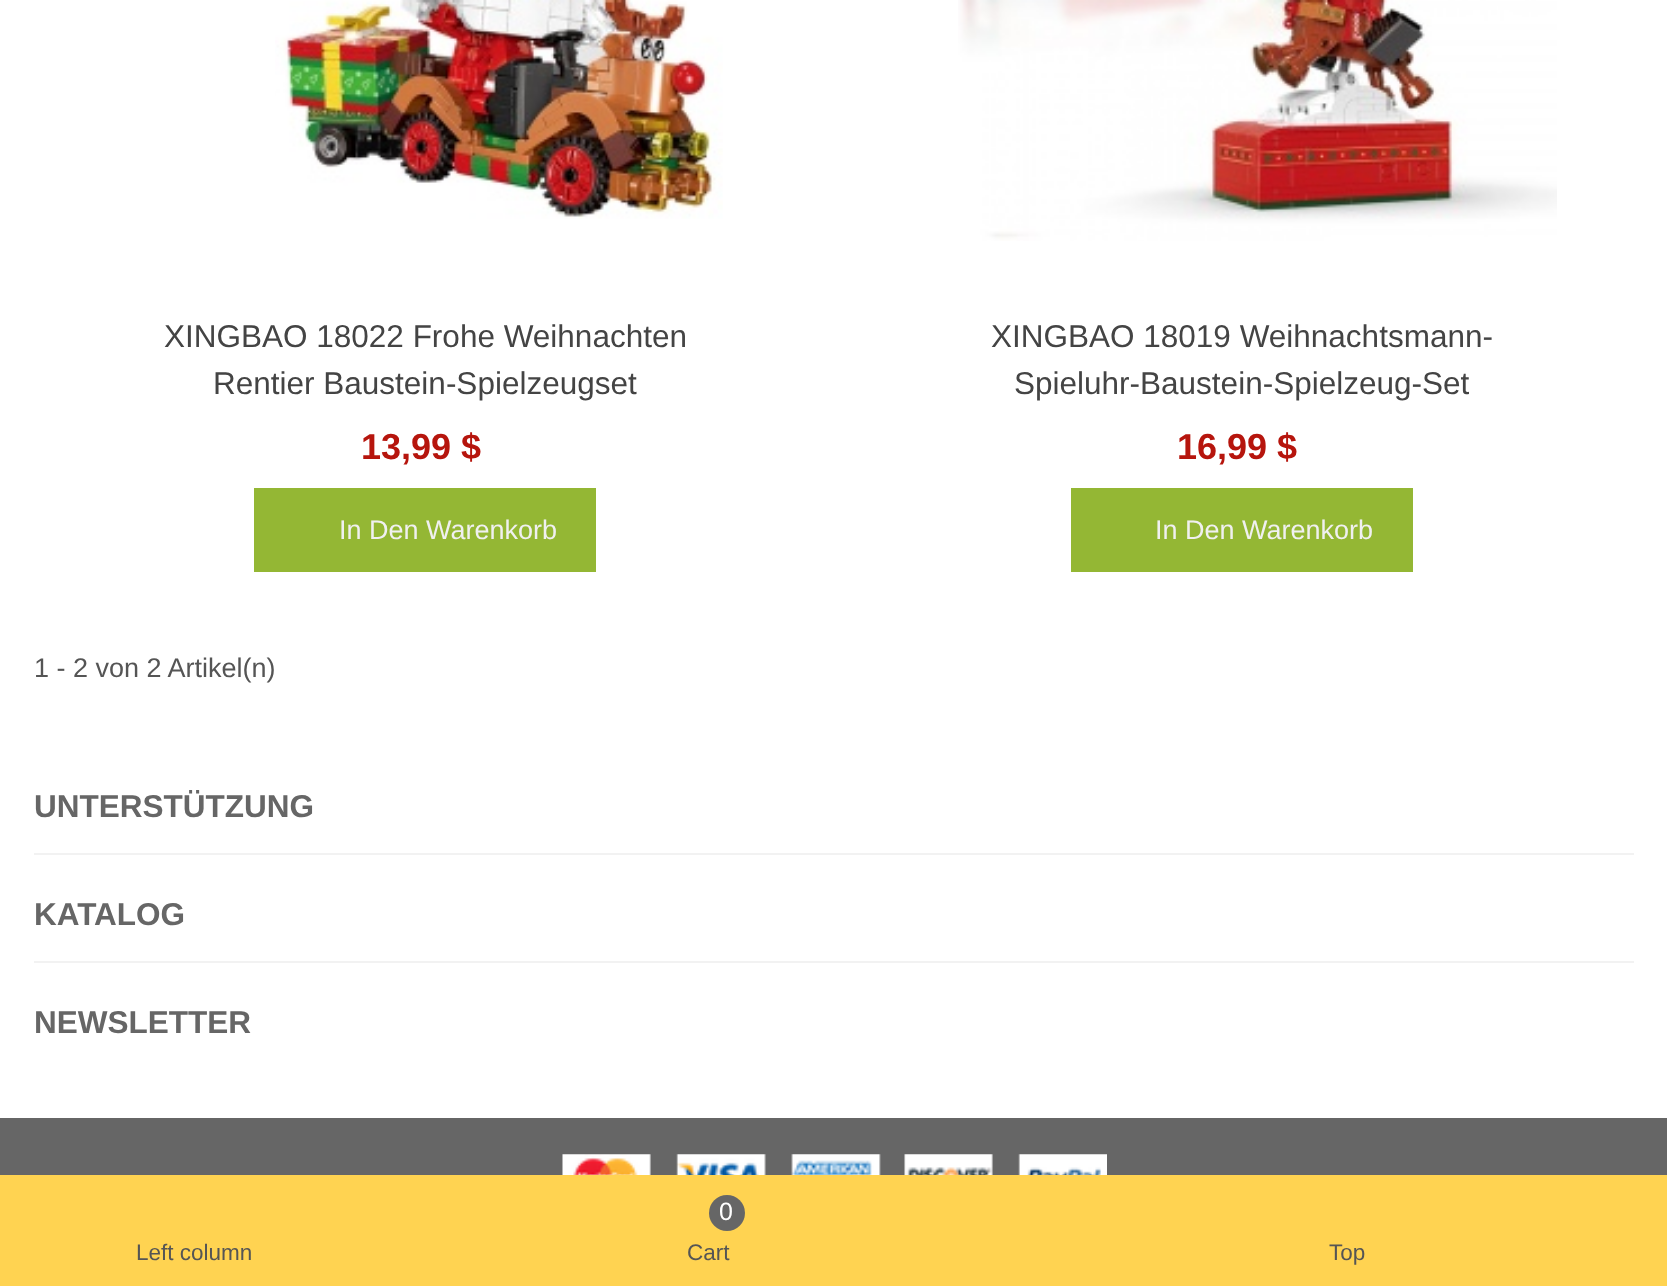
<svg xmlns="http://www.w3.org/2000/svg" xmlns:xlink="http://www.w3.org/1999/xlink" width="1667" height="1286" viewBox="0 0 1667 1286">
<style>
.cls-1{font:31.5px Liberation Sans;fill:#444444}
.cls-2{font:bold 36px Liberation Sans;fill:#b6150d}
.cls-3{font:27px Liberation Sans;fill:#f0f0f0}
.cls-4{font:27px Liberation Sans;fill:#555555}
.cls-5{font:bold 31.5px Liberation Sans;fill:#666666}
.cls-6{font:22.5px Liberation Sans;fill:#555555}
.cls-7{font:25px Liberation Sans;fill:#ffffff}
</style>
<rect width="100%" height="100%" fill="#ffffff"/>
<image xlink:href="image0.png" x="275" y="0" width="448" height="219"/>
<rect fill="#94b734" x="254" y="488" width="342" height="84"/>
<image xlink:href="image1.png" x="958" y="0" width="599" height="241"/>
<rect fill="#94b734" x="1071" y="488" width="342" height="84"/>
<rect fill="#f2f2f2" x="34" y="853" width="1600" height="2"/>
<rect fill="#f2f2f2" x="34" y="961" width="1600" height="2"/>
<rect fill="#666666" x="0" y="1118" width="1667" height="57"/>
<image xlink:href="image2.png" x="562" y="1154" width="545" height="21"/>
<rect fill="#ffd351" x="0" y="1175" width="1667" height="111"/>
<circle fill="#666666" cx="727" cy="1213" r="18"/>
<text class="cls-1" x="164" y="347">XINGBAO 18022 Frohe Weihnachten</text>
<text class="cls-1" x="213" y="394">Rentier Baustein-Spielzeugset</text>
<text class="cls-2" x="361" y="459">13,99 $</text>
<text class="cls-3" x="339" y="539">In Den Warenkorb</text>
<text class="cls-1" x="991" y="347">XINGBAO 18019 Weihnachtsmann-</text>
<text class="cls-1" x="1014" y="394">Spieluhr-Baustein-Spielzeug-Set</text>
<text class="cls-2" x="1177" y="459">16,99 $</text>
<text class="cls-3" x="1155" y="539">In Den Warenkorb</text>
<text class="cls-4" x="34" y="677">1 - 2 von 2 Artikel(n)</text>
<text class="cls-5" x="34" y="817">UNTERSTÜTZUNG</text>
<text class="cls-5" x="34" y="925">KATALOG</text>
<text class="cls-5" x="34" y="1033">NEWSLETTER</text>
<text class="cls-6" x="136" y="1260">Left column</text>
<text class="cls-7" x="719" y="1220">0</text>
<text class="cls-6" x="687" y="1260">Cart</text>
<text class="cls-6" x="1329" y="1260">Top</text>
</svg>
